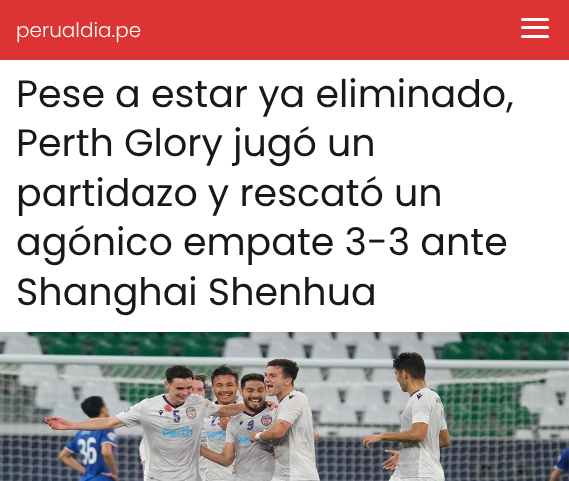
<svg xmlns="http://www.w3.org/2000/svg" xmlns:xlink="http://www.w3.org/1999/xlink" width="569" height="481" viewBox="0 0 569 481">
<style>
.cls-1{font:300 20px Poppins;fill:#ffffff}
.cls-2{font:38px Poppins;fill:#181818}
</style>
<rect width="100%" height="100%" fill="#ffffff"/>
<rect fill="#dd3333" x="0" y="0" width="569" height="60"/>
<rect fill="#ffffff" x="521" y="18" width="28" height="3" rx="1.5"/>
<rect fill="#ffffff" x="521" y="26" width="28" height="3" rx="1.5"/>
<rect fill="#ffffff" x="521" y="35" width="28" height="3" rx="1.5"/>
<image xlink:href="image0.png" x="0" y="332" width="569" height="149"/>
<text class="cls-1" x="16" y="37">perualdia.pe</text>
<text class="cls-2"><tspan x="16" y="107">Pese a estar ya eliminado,</tspan><tspan x="16" y="156">Perth Glory jugó un</tspan><tspan x="16" y="206">partidazo y rescató un</tspan><tspan x="16" y="255">agónico empate 3-3 ante</tspan><tspan x="16" y="305">Shanghai Shenhua</tspan></text>
</svg>
